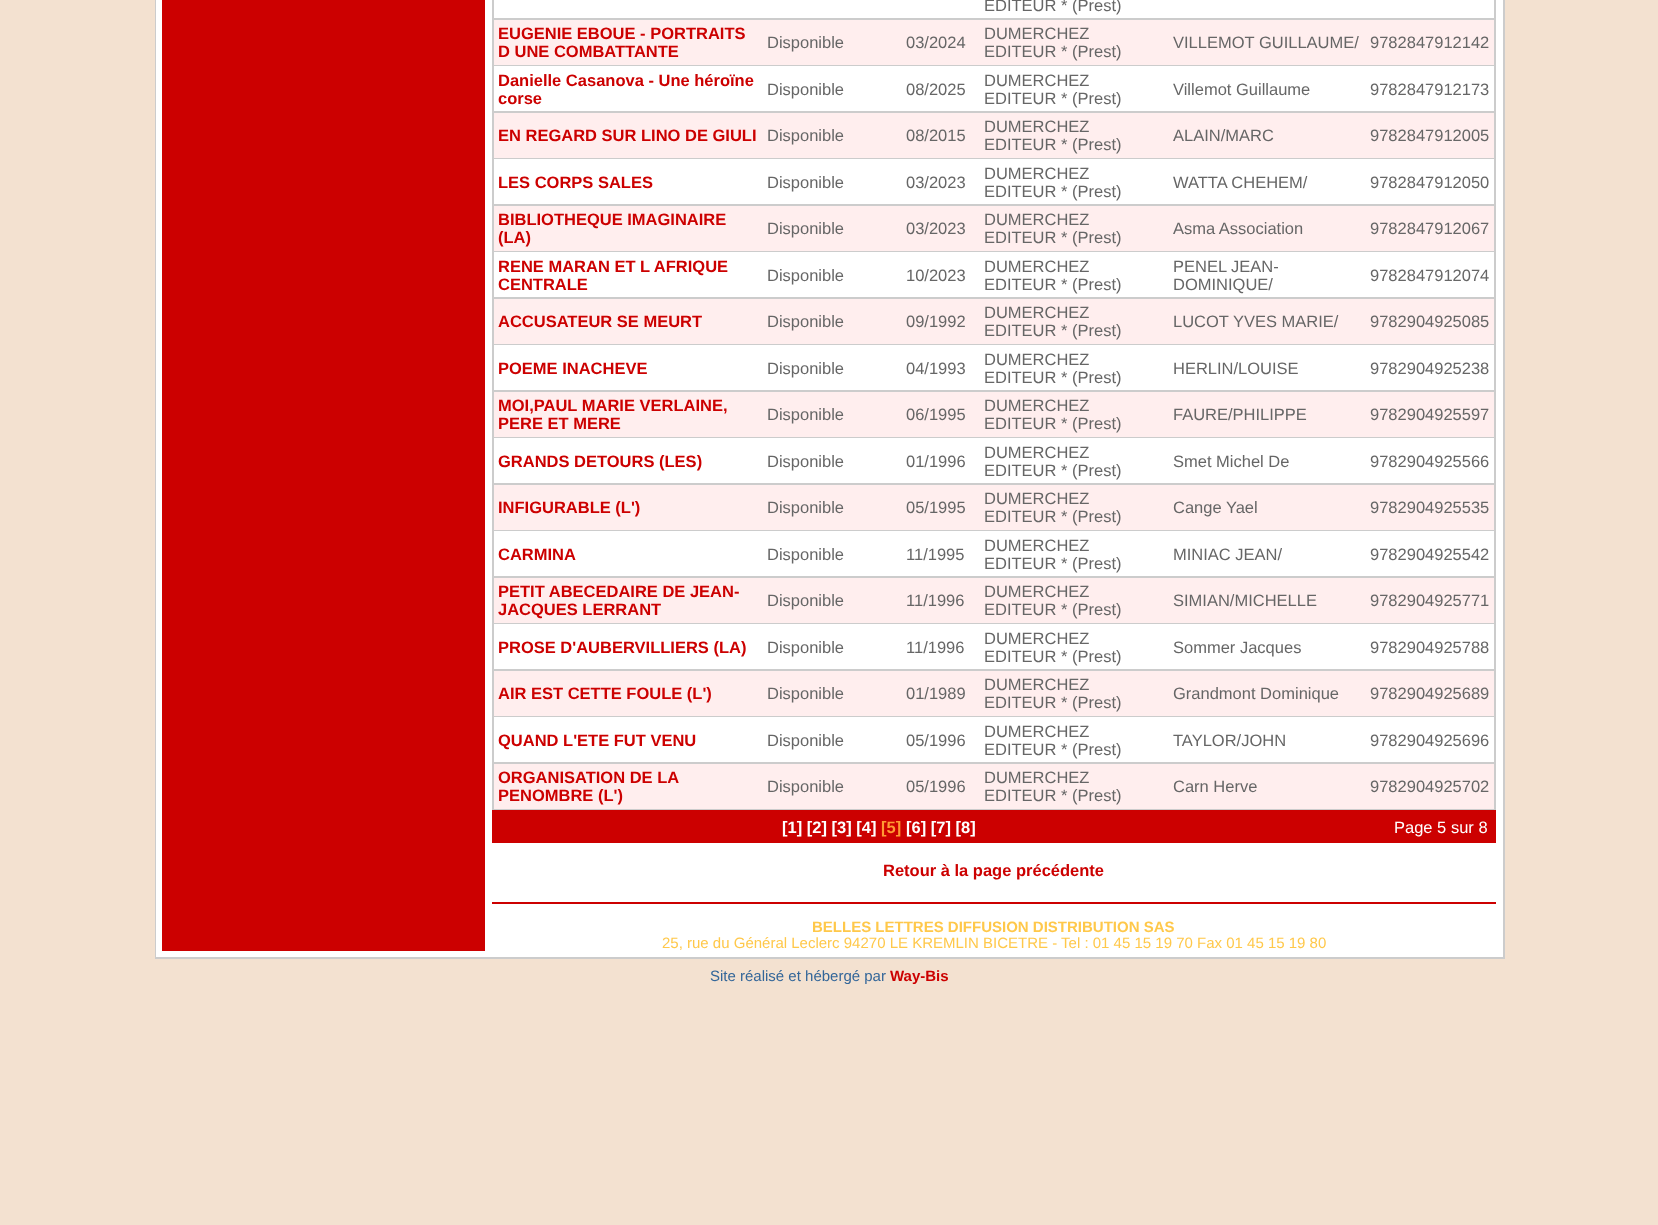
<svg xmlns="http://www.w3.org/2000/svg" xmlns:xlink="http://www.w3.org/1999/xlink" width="1658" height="1225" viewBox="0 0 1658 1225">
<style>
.cls-1{font:16.5px Liberation Sans;fill:#666666}
.cls-2{font:bold 16.5px Liberation Sans;fill:#cc0000}
.cls-3{font:bold 16.5px Liberation Sans;fill:#ffffff}
.cls-4{font:bold 16.5px Liberation Sans;fill:#ff9933}
.cls-5{font:16.5px Liberation Sans;fill:#ffffff}
.cls-6{font:bold 15px Liberation Sans;fill:#ffc84a}
.cls-7{font:15px Liberation Sans;fill:#ffc84a}
.cls-8{font:15px Liberation Sans;fill:#336699}
.cls-9{font:bold 15px Liberation Sans;fill:#cc0000}
</style>
<rect width="100%" height="100%" fill="#f3e1d0"/>
<rect fill="#cccccc" x="155" y="0" width="1350" height="959"/>
<rect fill="#ffffff" x="156" y="0" width="1347" height="957"/>
<rect fill="#cc0000" x="162" y="0" width="323" height="951"/>
<rect fill="#cccccc" x="492" y="0" width="1004" height="810"/>
<rect fill="#ffffff" x="494" y="0" width="1000" height="18"/>
<rect fill="#ffeeee" x="494" y="20" width="1000" height="45"/>
<rect fill="#ffffff" x="494" y="66" width="1000" height="45"/>
<rect fill="#ffeeee" x="494" y="113" width="1000" height="45"/>
<rect fill="#ffffff" x="494" y="159" width="1000" height="45"/>
<rect fill="#ffeeee" x="494" y="206" width="1000" height="45"/>
<rect fill="#ffffff" x="494" y="252" width="1000" height="45"/>
<rect fill="#ffeeee" x="494" y="299" width="1000" height="45"/>
<rect fill="#ffffff" x="494" y="345" width="1000" height="45"/>
<rect fill="#ffeeee" x="494" y="392" width="1000" height="45"/>
<rect fill="#ffffff" x="494" y="438" width="1000" height="45"/>
<rect fill="#ffeeee" x="494" y="485" width="1000" height="45"/>
<rect fill="#ffffff" x="494" y="531" width="1000" height="45"/>
<rect fill="#ffeeee" x="494" y="578" width="1000" height="45"/>
<rect fill="#ffffff" x="494" y="624" width="1000" height="45"/>
<rect fill="#ffeeee" x="494" y="671" width="1000" height="45"/>
<rect fill="#ffffff" x="494" y="717" width="1000" height="45"/>
<rect fill="#ffeeee" x="494" y="764" width="1000" height="45"/>
<rect fill="#cc0000" x="492" y="810" width="1004" height="33"/>
<rect fill="#cc0000" x="492" y="902" width="1004" height="2"/>
<text class="cls-1" x="984" y="11">EDITEUR * (Prest)</text>
<text class="cls-2"><tspan x="498" y="39">EUGENIE EBOUE - PORTRAITS</tspan><tspan x="498" y="57">D UNE COMBATTANTE</tspan></text>
<text class="cls-1" x="767" y="48">Disponible</text>
<text class="cls-1" x="906" y="48">03/2024</text>
<text class="cls-1"><tspan x="984" y="39">DUMERCHEZ</tspan><tspan x="984" y="57">EDITEUR * (Prest)</tspan></text>
<text class="cls-1" x="1173" y="48">VILLEMOT GUILLAUME/</text>
<text class="cls-1" x="1370" y="48">9782847912142</text>
<text class="cls-2"><tspan x="498" y="86">Danielle Casanova - Une héroïne</tspan><tspan x="498" y="104">corse</tspan></text>
<text class="cls-1" x="767" y="95">Disponible</text>
<text class="cls-1" x="906" y="95">08/2025</text>
<text class="cls-1"><tspan x="984" y="86">DUMERCHEZ</tspan><tspan x="984" y="104">EDITEUR * (Prest)</tspan></text>
<text class="cls-1" x="1173" y="95">Villemot Guillaume</text>
<text class="cls-1" x="1370" y="95">9782847912173</text>
<text class="cls-2" x="498" y="141">EN REGARD SUR LINO DE GIULI</text>
<text class="cls-1" x="767" y="141">Disponible</text>
<text class="cls-1" x="906" y="141">08/2015</text>
<text class="cls-1"><tspan x="984" y="132">DUMERCHEZ</tspan><tspan x="984" y="150">EDITEUR * (Prest)</tspan></text>
<text class="cls-1" x="1173" y="141">ALAIN/MARC</text>
<text class="cls-1" x="1370" y="141">9782847912005</text>
<text class="cls-2" x="498" y="188">LES CORPS SALES</text>
<text class="cls-1" x="767" y="188">Disponible</text>
<text class="cls-1" x="906" y="188">03/2023</text>
<text class="cls-1"><tspan x="984" y="179">DUMERCHEZ</tspan><tspan x="984" y="197">EDITEUR * (Prest)</tspan></text>
<text class="cls-1" x="1173" y="188">WATTA CHEHEM/</text>
<text class="cls-1" x="1370" y="188">9782847912050</text>
<text class="cls-2"><tspan x="498" y="225">BIBLIOTHEQUE IMAGINAIRE</tspan><tspan x="498" y="243">(LA)</tspan></text>
<text class="cls-1" x="767" y="234">Disponible</text>
<text class="cls-1" x="906" y="234">03/2023</text>
<text class="cls-1"><tspan x="984" y="225">DUMERCHEZ</tspan><tspan x="984" y="243">EDITEUR * (Prest)</tspan></text>
<text class="cls-1" x="1173" y="234">Asma Association</text>
<text class="cls-1" x="1370" y="234">9782847912067</text>
<text class="cls-2"><tspan x="498" y="272">RENE MARAN ET L AFRIQUE</tspan><tspan x="498" y="290">CENTRALE</tspan></text>
<text class="cls-1" x="767" y="281">Disponible</text>
<text class="cls-1" x="906" y="281">10/2023</text>
<text class="cls-1"><tspan x="984" y="272">DUMERCHEZ</tspan><tspan x="984" y="290">EDITEUR * (Prest)</tspan></text>
<text class="cls-1"><tspan x="1173" y="272">PENEL JEAN-</tspan><tspan x="1173" y="290">DOMINIQUE/</tspan></text>
<text class="cls-1" x="1370" y="281">9782847912074</text>
<text class="cls-2" x="498" y="327">ACCUSATEUR SE MEURT</text>
<text class="cls-1" x="767" y="327">Disponible</text>
<text class="cls-1" x="906" y="327">09/1992</text>
<text class="cls-1"><tspan x="984" y="318">DUMERCHEZ</tspan><tspan x="984" y="336">EDITEUR * (Prest)</tspan></text>
<text class="cls-1" x="1173" y="327">LUCOT YVES MARIE/</text>
<text class="cls-1" x="1370" y="327">9782904925085</text>
<text class="cls-2" x="498" y="374">POEME INACHEVE</text>
<text class="cls-1" x="767" y="374">Disponible</text>
<text class="cls-1" x="906" y="374">04/1993</text>
<text class="cls-1"><tspan x="984" y="365">DUMERCHEZ</tspan><tspan x="984" y="383">EDITEUR * (Prest)</tspan></text>
<text class="cls-1" x="1173" y="374">HERLIN/LOUISE</text>
<text class="cls-1" x="1370" y="374">9782904925238</text>
<text class="cls-2"><tspan x="498" y="411">MOI,PAUL MARIE VERLAINE,</tspan><tspan x="498" y="429">PERE ET MERE</tspan></text>
<text class="cls-1" x="767" y="420">Disponible</text>
<text class="cls-1" x="906" y="420">06/1995</text>
<text class="cls-1"><tspan x="984" y="411">DUMERCHEZ</tspan><tspan x="984" y="429">EDITEUR * (Prest)</tspan></text>
<text class="cls-1" x="1173" y="420">FAURE/PHILIPPE</text>
<text class="cls-1" x="1370" y="420">9782904925597</text>
<text class="cls-2" x="498" y="467">GRANDS DETOURS (LES)</text>
<text class="cls-1" x="767" y="467">Disponible</text>
<text class="cls-1" x="906" y="467">01/1996</text>
<text class="cls-1"><tspan x="984" y="458">DUMERCHEZ</tspan><tspan x="984" y="476">EDITEUR * (Prest)</tspan></text>
<text class="cls-1" x="1173" y="467">Smet Michel De</text>
<text class="cls-1" x="1370" y="467">9782904925566</text>
<text class="cls-2" x="498" y="513">INFIGURABLE (L')</text>
<text class="cls-1" x="767" y="513">Disponible</text>
<text class="cls-1" x="906" y="513">05/1995</text>
<text class="cls-1"><tspan x="984" y="504">DUMERCHEZ</tspan><tspan x="984" y="522">EDITEUR * (Prest)</tspan></text>
<text class="cls-1" x="1173" y="513">Cange Yael</text>
<text class="cls-1" x="1370" y="513">9782904925535</text>
<text class="cls-2" x="498" y="560">CARMINA</text>
<text class="cls-1" x="767" y="560">Disponible</text>
<text class="cls-1" x="906" y="560">11/1995</text>
<text class="cls-1"><tspan x="984" y="551">DUMERCHEZ</tspan><tspan x="984" y="569">EDITEUR * (Prest)</tspan></text>
<text class="cls-1" x="1173" y="560">MINIAC JEAN/</text>
<text class="cls-1" x="1370" y="560">9782904925542</text>
<text class="cls-2"><tspan x="498" y="597">PETIT ABECEDAIRE DE JEAN-</tspan><tspan x="498" y="615">JACQUES LERRANT</tspan></text>
<text class="cls-1" x="767" y="606">Disponible</text>
<text class="cls-1" x="906" y="606">11/1996</text>
<text class="cls-1"><tspan x="984" y="597">DUMERCHEZ</tspan><tspan x="984" y="615">EDITEUR * (Prest)</tspan></text>
<text class="cls-1" x="1173" y="606">SIMIAN/MICHELLE</text>
<text class="cls-1" x="1370" y="606">9782904925771</text>
<text class="cls-2" x="498" y="653">PROSE D'AUBERVILLIERS (LA)</text>
<text class="cls-1" x="767" y="653">Disponible</text>
<text class="cls-1" x="906" y="653">11/1996</text>
<text class="cls-1"><tspan x="984" y="644">DUMERCHEZ</tspan><tspan x="984" y="662">EDITEUR * (Prest)</tspan></text>
<text class="cls-1" x="1173" y="653">Sommer Jacques</text>
<text class="cls-1" x="1370" y="653">9782904925788</text>
<text class="cls-2" x="498" y="699">AIR EST CETTE FOULE (L')</text>
<text class="cls-1" x="767" y="699">Disponible</text>
<text class="cls-1" x="906" y="699">01/1989</text>
<text class="cls-1"><tspan x="984" y="690">DUMERCHEZ</tspan><tspan x="984" y="708">EDITEUR * (Prest)</tspan></text>
<text class="cls-1" x="1173" y="699">Grandmont Dominique</text>
<text class="cls-1" x="1370" y="699">9782904925689</text>
<text class="cls-2" x="498" y="746">QUAND L'ETE FUT VENU</text>
<text class="cls-1" x="767" y="746">Disponible</text>
<text class="cls-1" x="906" y="746">05/1996</text>
<text class="cls-1"><tspan x="984" y="737">DUMERCHEZ</tspan><tspan x="984" y="755">EDITEUR * (Prest)</tspan></text>
<text class="cls-1" x="1173" y="746">TAYLOR/JOHN</text>
<text class="cls-1" x="1370" y="746">9782904925696</text>
<text class="cls-2"><tspan x="498" y="783">ORGANISATION DE LA</tspan><tspan x="498" y="801">PENOMBRE (L')</tspan></text>
<text class="cls-1" x="767" y="792">Disponible</text>
<text class="cls-1" x="906" y="792">05/1996</text>
<text class="cls-1"><tspan x="984" y="783">DUMERCHEZ</tspan><tspan x="984" y="801">EDITEUR * (Prest)</tspan></text>
<text class="cls-1" x="1173" y="792">Carn Herve</text>
<text class="cls-1" x="1370" y="792">9782904925702</text>
<text class="cls-3" x="782" y="833">[1] [2] [3] [4]</text>
<text class="cls-4" x="881" y="833">[5]</text>
<text class="cls-3" x="906" y="833">[6] [7] [8]</text>
<text class="cls-5" x="1394" y="833">Page 5 sur 8</text>
<text class="cls-2" x="883" y="876">Retour à la page précédente</text>
<text class="cls-6" x="812" y="932">BELLES LETTRES DIFFUSION DISTRIBUTION SAS</text>
<text class="cls-7" x="662" y="948">25, rue du Général Leclerc 94270 LE KREMLIN BICETRE - Tel : 01 45 15 19 70 Fax 01 45 15 19 80</text>
<text class="cls-8" x="710" y="981">Site réalisé et hébergé par</text>
<text class="cls-9" x="890" y="981">Way-Bis</text>
</svg>
